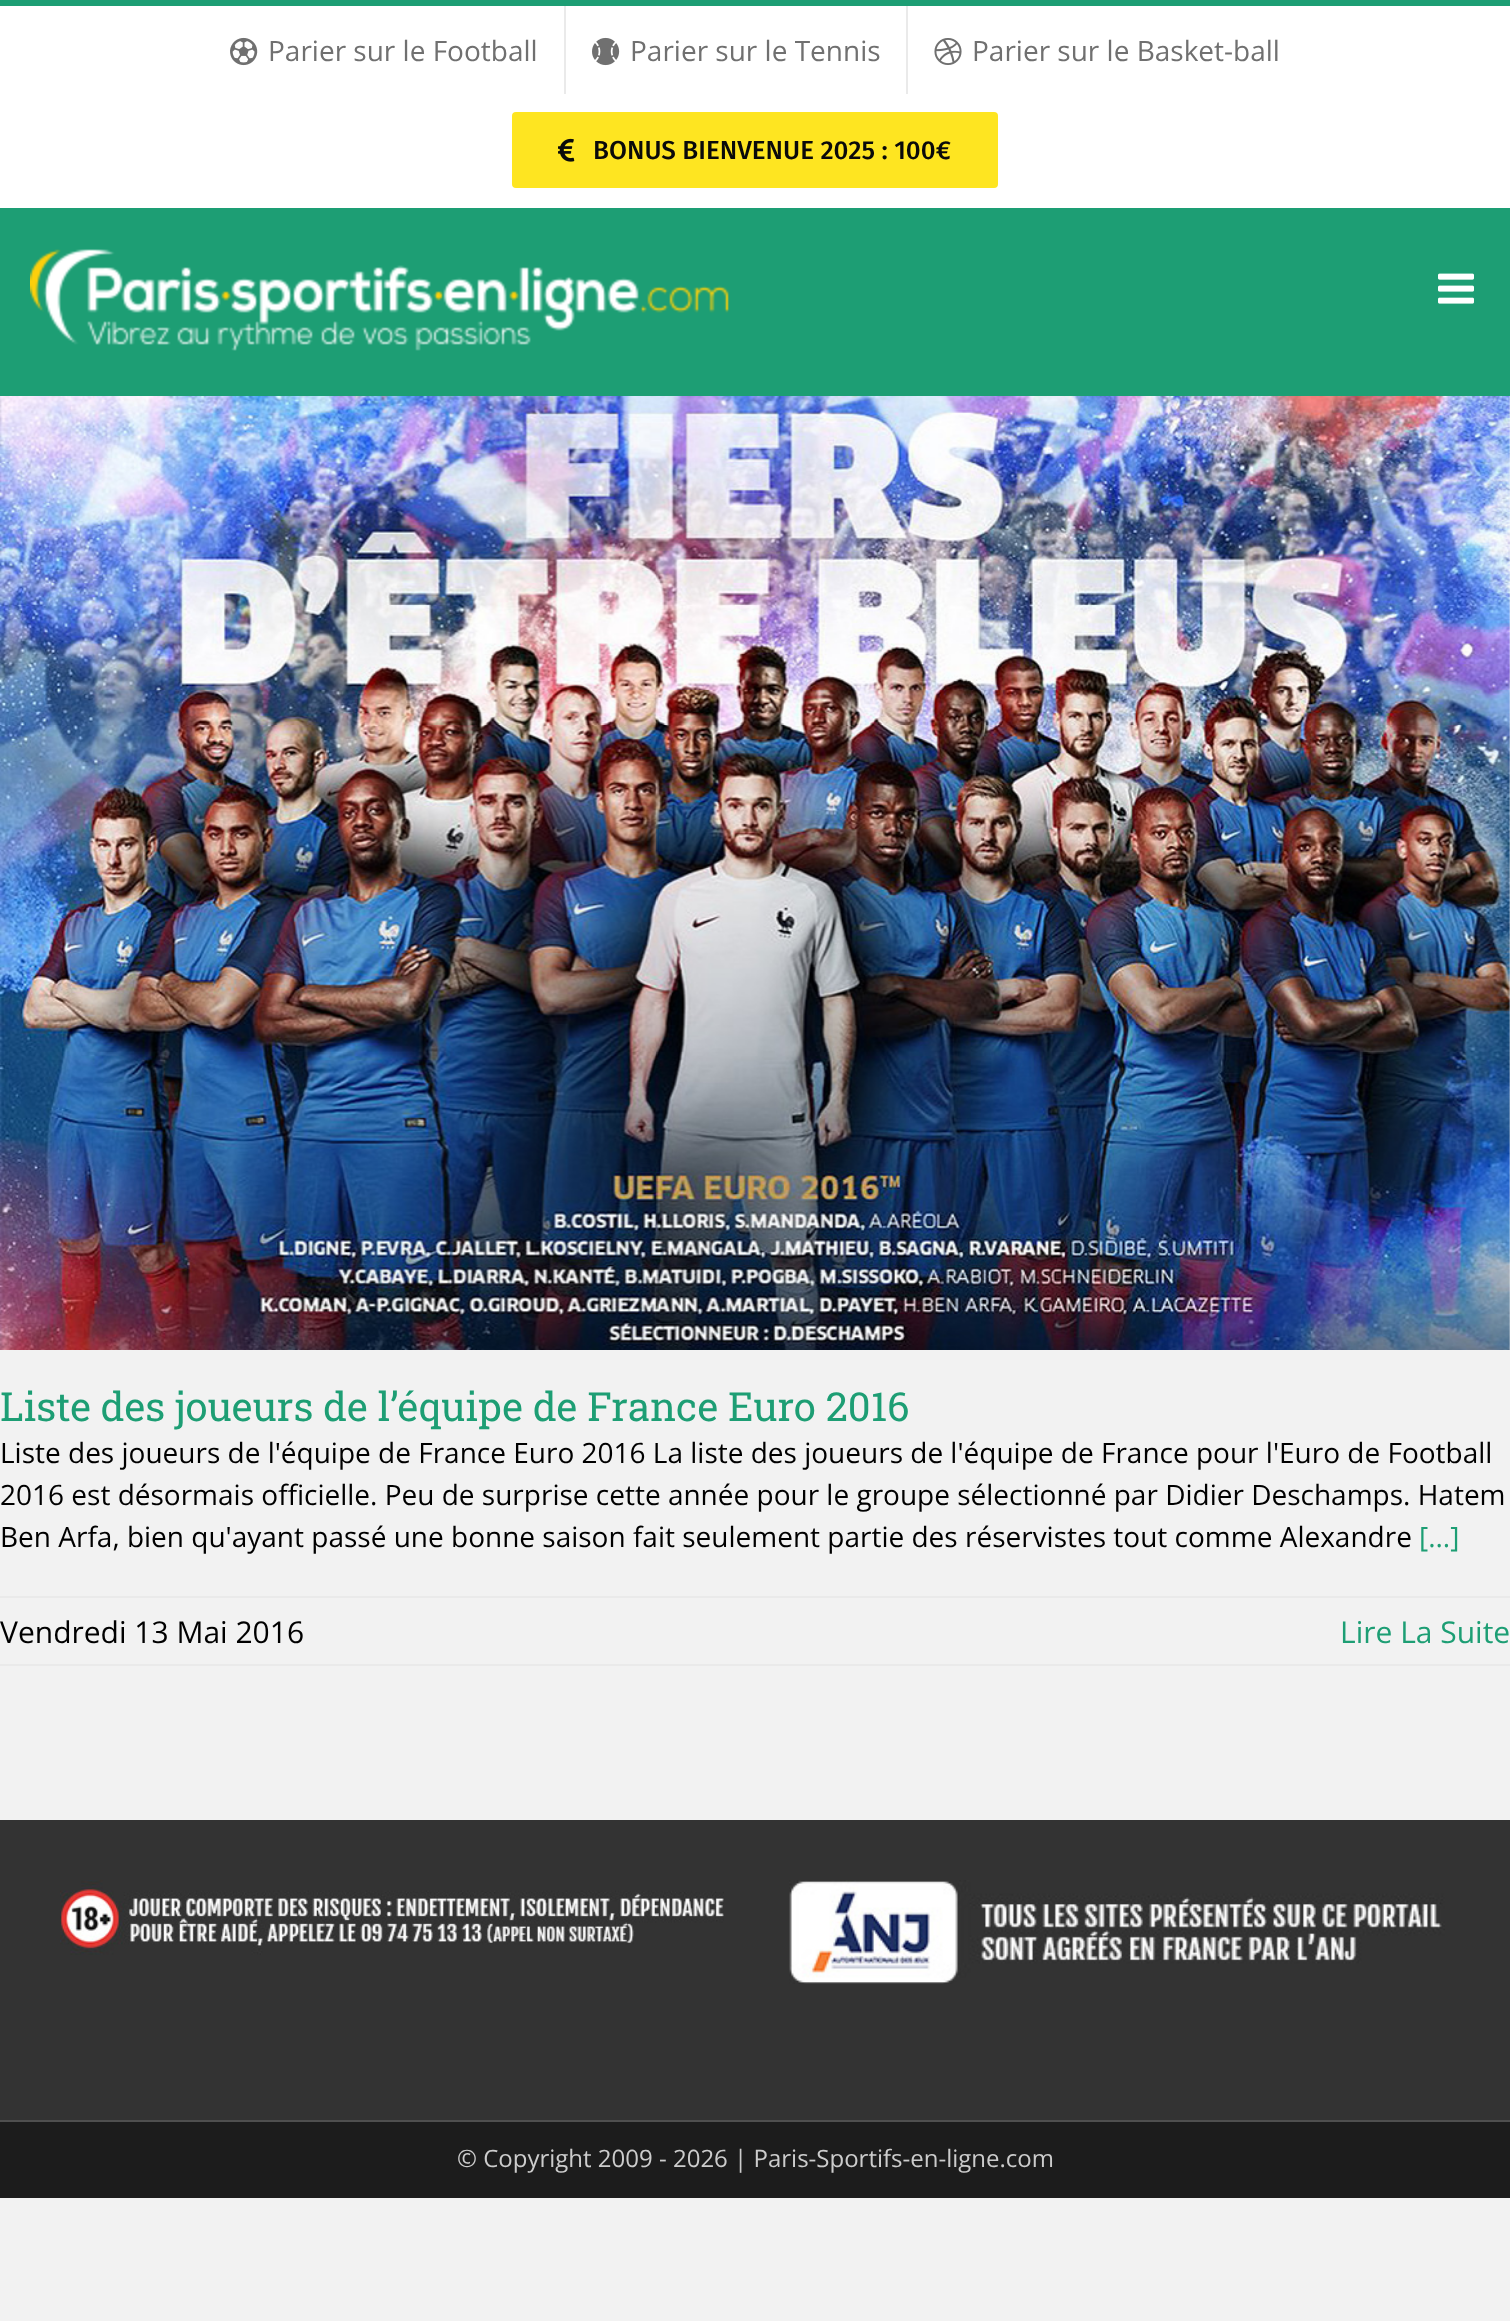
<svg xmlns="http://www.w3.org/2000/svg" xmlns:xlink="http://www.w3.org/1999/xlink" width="1510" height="2321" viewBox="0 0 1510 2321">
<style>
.cls-1{font:28px Open Sans;fill:#707070}
.cls-2{font:500 26px Fira Sans;fill:#0a0a0a}
.cls-3{font:40px Roboto Slab;fill:#1d9e74}
.cls-4{font:28px Open Sans;fill:#000000}
.cls-5{font:28px Open Sans;fill:#1d9e74}
.cls-6{font:30px Open Sans;fill:#000000}
.cls-7{font:30px Open Sans;fill:#1d9e74}
.cls-8{font:24px Open Sans;fill:#cccccc}
</style>
<rect width="100%" height="100%" fill="#f2f2f2"/>
<rect fill="#ffffff" x="0" y="6" width="1510" height="202"/>
<rect fill="#1d9e74" x="0" y="0" width="1510" height="6"/>
<image xlink:href="image0.png" x="230" y="37" width="28" height="29"/>
<rect fill="#eaeaea" x="564" y="6" width="2" height="88"/>
<image xlink:href="image1.png" x="592" y="37" width="28" height="29"/>
<rect fill="#eaeaea" x="906" y="6" width="2" height="88"/>
<image xlink:href="image2.png" x="934" y="38" width="28" height="27"/>
<rect fill="#fee521" x="512" y="112" width="486" height="76" rx="4"/>
<image xlink:href="image3.png" x="558" y="138" width="17" height="24"/>
<rect fill="#1d9e74" x="0" y="208" width="1510" height="188"/>
<image xlink:href="image4.png" x="30" y="249" width="699" height="102"/>
<image xlink:href="image5.png" x="1438" y="273" width="36" height="31"/>
<image xlink:href="image6.png" x="0" y="396" width="1510" height="954"/>
<rect fill="#eaeaea" x="0" y="1596" width="1510" height="2"/>
<rect fill="#eaeaea" x="0" y="1664" width="1510" height="2"/>
<rect fill="#333333" x="0" y="1820" width="1510" height="300"/>
<image xlink:href="image7.png" x="60" y="1880" width="664" height="75"/>
<image xlink:href="image8.png" x="789" y="1880" width="656" height="104"/>
<rect fill="#1c1c1c" x="0" y="2122" width="1510" height="76"/>
<rect fill="#4f4f4f" x="0" y="2120" width="1510" height="2"/>
<text class="cls-1" x="268" y="61">Parier sur le Football</text>
<text class="cls-1" x="630" y="61">Parier sur le Tennis</text>
<text class="cls-1" x="972" y="61">Parier sur le Basket-ball</text>
<text class="cls-2" x="593" y="159">BONUS BIENVENUE 2025 : 100€</text>
<text class="cls-3" x="0" y="1421">Liste des joueurs de l’équipe de France Euro 2016</text>
<text class="cls-4"><tspan x="0" y="1463">Liste des joueurs de l'équipe de France Euro 2016 La liste des joueurs de l'équipe de France pour l'Euro de Football</tspan><tspan x="0" y="1505">2016 est désormais officielle. Peu de surprise cette année pour le groupe sélectionné par Didier Deschamps. Hatem</tspan><tspan x="0" y="1547">Ben Arfa, bien qu'ayant passé une bonne saison fait seulement partie des réservistes tout comme Alexandre</tspan></text>
<text class="cls-5" x="1419" y="1547">[...]</text>
<text class="cls-6" x="0" y="1643">Vendredi 13 Mai 2016</text>
<text class="cls-7" x="1340" y="1643">Lire La Suite</text>
<text class="cls-8" x="457" y="2167">© Copyright 2009 - 2026 | Paris-Sportifs-en-ligne.com</text>
</svg>
